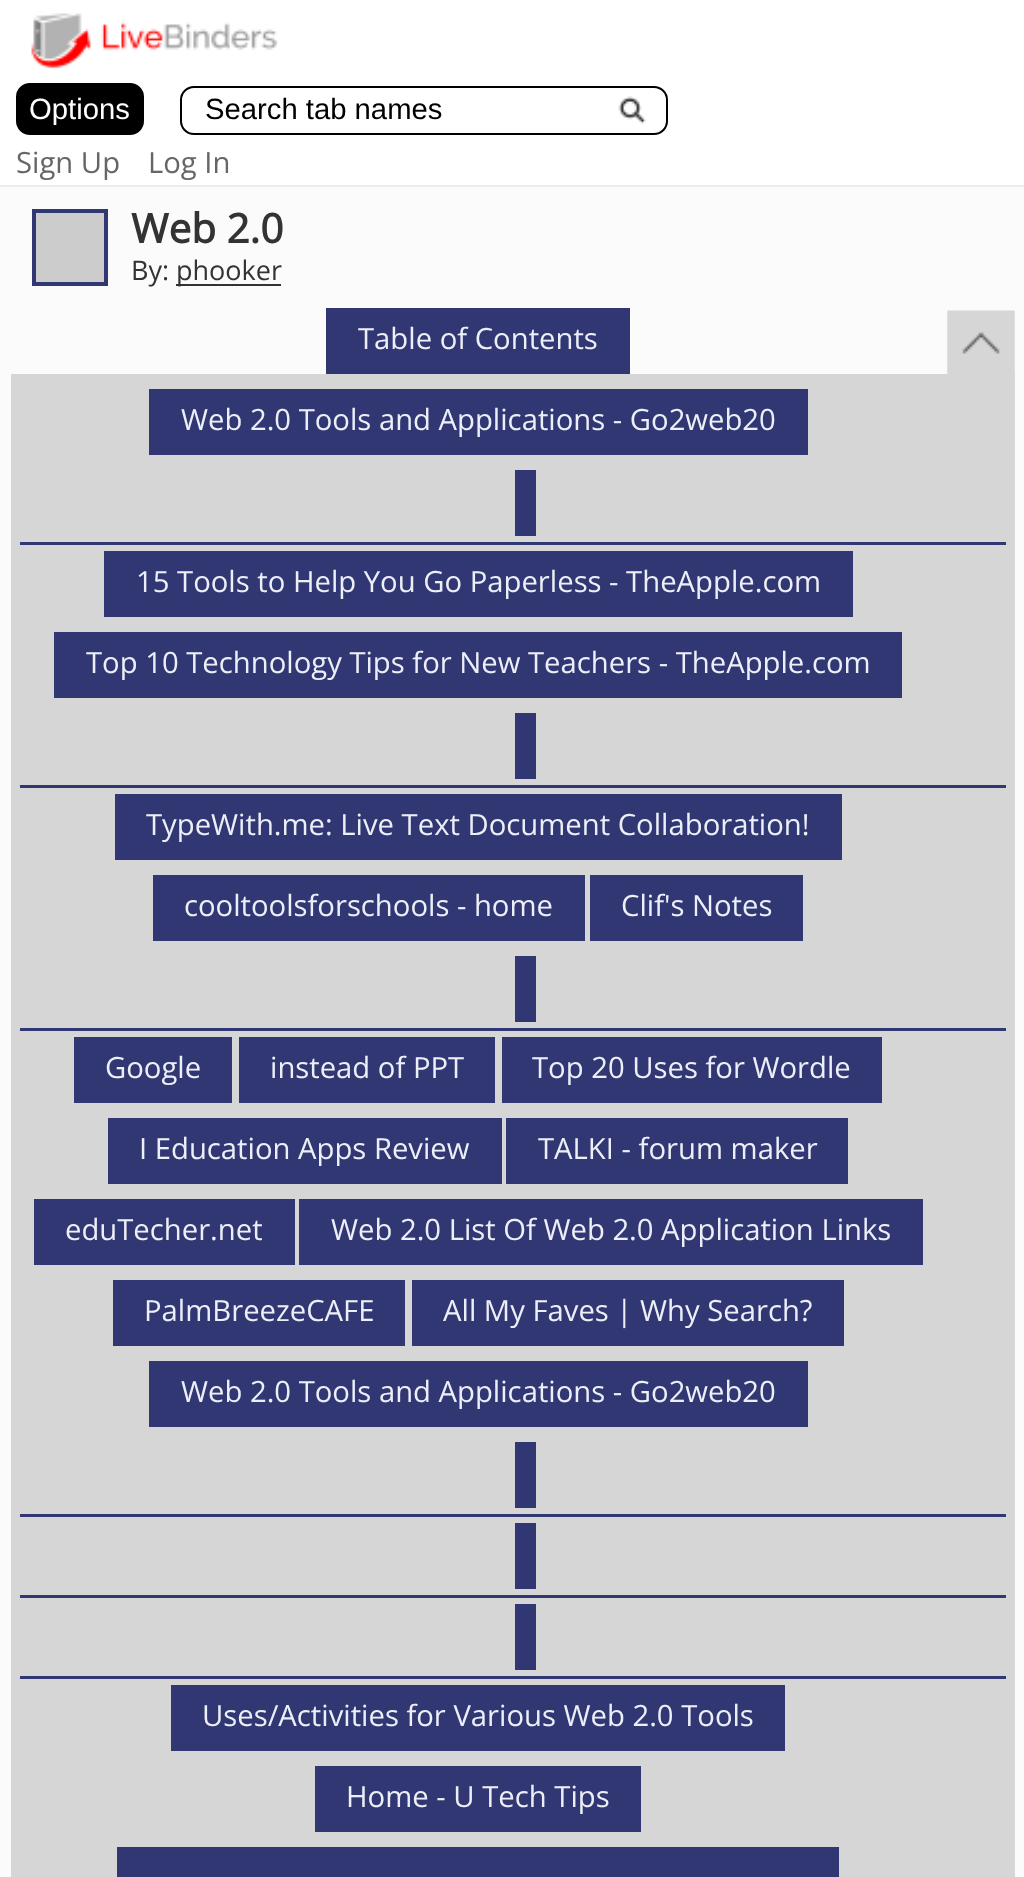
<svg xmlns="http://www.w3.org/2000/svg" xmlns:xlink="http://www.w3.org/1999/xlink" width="1024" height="1877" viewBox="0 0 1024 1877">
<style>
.cls-1{font:29.25px Liberation Sans;fill:#ffffff}
.cls-2{font:29.25px Liberation Sans;fill:#000000}
.cls-3{font:29.25px Open Sans;fill:#666666}
.cls-4{font:bold 40.5px Open Sans;fill:#333333}
.cls-5{font:27px Open Sans;fill:#333333}
.cls-6{font:29.25px Open Sans;fill:#edeff8}
</style>
<rect width="100%" height="100%" fill="#fbfbfb"/>
<rect fill="#ffffff" x="0" y="0" width="1024" height="185"/>
<rect fill="#ebebeb" x="0" y="185" width="1024" height="2"/>
<image xlink:href="image0.png" x="31" y="13" width="247" height="56"/>
<rect fill="#000000" stroke="#000000" stroke-width="2" x="17" y="84" width="126" height="50" rx="13"/>
<image xlink:href="image1.png" x="618" y="96" width="29" height="29"/>
<rect fill="none" stroke="#000000" stroke-width="2" x="181" y="87" width="486" height="47" rx="13"/>
<rect fill="#313773" x="32" y="209" width="76" height="77"/>
<rect fill="#cccccc" x="36" y="213" width="68" height="69"/>
<rect fill="#333333" x="176" y="284" width="105" height="2"/>
<rect fill="#d6d6d6" x="11" y="374" width="1004" height="1503"/>
<rect fill="#313773" x="326" y="308" width="304" height="66"/>
<rect fill="#313773" x="149" y="389" width="659" height="66"/>
<rect fill="#313773" x="515" y="470" width="21" height="66"/>
<rect fill="#313773" x="20" y="542" width="986" height="3"/>
<rect fill="#313773" x="104" y="551" width="749" height="66"/>
<rect fill="#313773" x="54" y="632" width="848" height="66"/>
<rect fill="#313773" x="515" y="713" width="21" height="66"/>
<rect fill="#313773" x="20" y="785" width="986" height="3"/>
<rect fill="#313773" x="115" y="794" width="727" height="66"/>
<rect fill="#313773" x="153" y="875" width="432" height="66"/>
<rect fill="#313773" x="590" y="875" width="213" height="66"/>
<rect fill="#313773" x="515" y="956" width="21" height="66"/>
<rect fill="#313773" x="20" y="1028" width="986" height="3"/>
<rect fill="#313773" x="74" y="1037" width="158" height="66"/>
<rect fill="#313773" x="239" y="1037" width="256" height="66"/>
<rect fill="#313773" x="502" y="1037" width="380" height="66"/>
<rect fill="#313773" x="108" y="1118" width="394" height="66"/>
<rect fill="#313773" x="506" y="1118" width="342" height="66"/>
<rect fill="#313773" x="34" y="1199" width="261" height="66"/>
<rect fill="#313773" x="299" y="1199" width="624" height="66"/>
<rect fill="#313773" x="113" y="1280" width="292" height="66"/>
<rect fill="#313773" x="412" y="1280" width="432" height="66"/>
<rect fill="#313773" x="149" y="1361" width="659" height="66"/>
<rect fill="#313773" x="515" y="1442" width="21" height="66"/>
<rect fill="#313773" x="20" y="1514" width="986" height="3"/>
<rect fill="#313773" x="515" y="1523" width="21" height="66"/>
<rect fill="#313773" x="20" y="1595" width="986" height="3"/>
<rect fill="#313773" x="515" y="1604" width="21" height="66"/>
<rect fill="#313773" x="20" y="1676" width="986" height="3"/>
<rect fill="#313773" x="171" y="1685" width="614" height="66"/>
<rect fill="#313773" x="315" y="1766" width="326" height="66"/>
<rect fill="#313773" x="117" y="1847" width="722" height="30"/>
<image xlink:href="image2.png" x="947" y="310" width="68" height="64"/>
<text class="cls-1" x="29" y="119">Options</text>
<text class="cls-2" x="205" y="119">Search tab names</text>
<text class="cls-3" x="16" y="173">Sign Up</text>
<text class="cls-3" x="148" y="173">Log In</text>
<text class="cls-4" x="131" y="243">Web 2.0</text>
<text class="cls-5" x="131" y="280">By:</text>
<text class="cls-5" x="176" y="280">phooker</text>
<text class="cls-6" x="358" y="349">Table of Contents</text>
<text class="cls-6" x="181" y="430">Web 2.0 Tools and Applications - Go2web20</text>
<text class="cls-6" x="136" y="592">15 Tools to Help You Go Paperless - TheApple.com</text>
<text class="cls-6" x="86" y="673">Top 10 Technology Tips for New Teachers - TheApple.com</text>
<text class="cls-6" x="146" y="835">TypeWith.me: Live Text Document Collaboration!</text>
<text class="cls-6" x="184" y="916">cooltoolsforschools - home</text>
<text class="cls-6" x="621" y="916">Clif's Notes</text>
<text class="cls-6" x="105" y="1078">Google</text>
<text class="cls-6" x="270" y="1078">instead of PPT</text>
<text class="cls-6" x="532" y="1078">Top 20 Uses for Wordle</text>
<text class="cls-6" x="139" y="1159">I Education Apps Review</text>
<text class="cls-6" x="538" y="1159">TALKI - forum maker</text>
<text class="cls-6" x="65" y="1240">eduTecher.net</text>
<text class="cls-6" x="331" y="1240">Web 2.0 List Of Web 2.0 Application Links</text>
<text class="cls-6" x="144" y="1321">PalmBreezeCAFE</text>
<text class="cls-6" x="443" y="1321">All My Faves | Why Search?</text>
<text class="cls-6" x="181" y="1402">Web 2.0 Tools and Applications - Go2web20</text>
<text class="cls-6" x="202" y="1726">Uses/Activities for Various Web 2.0 Tools</text>
<text class="cls-6" x="346" y="1807">Home - U Tech Tips</text>
</svg>
